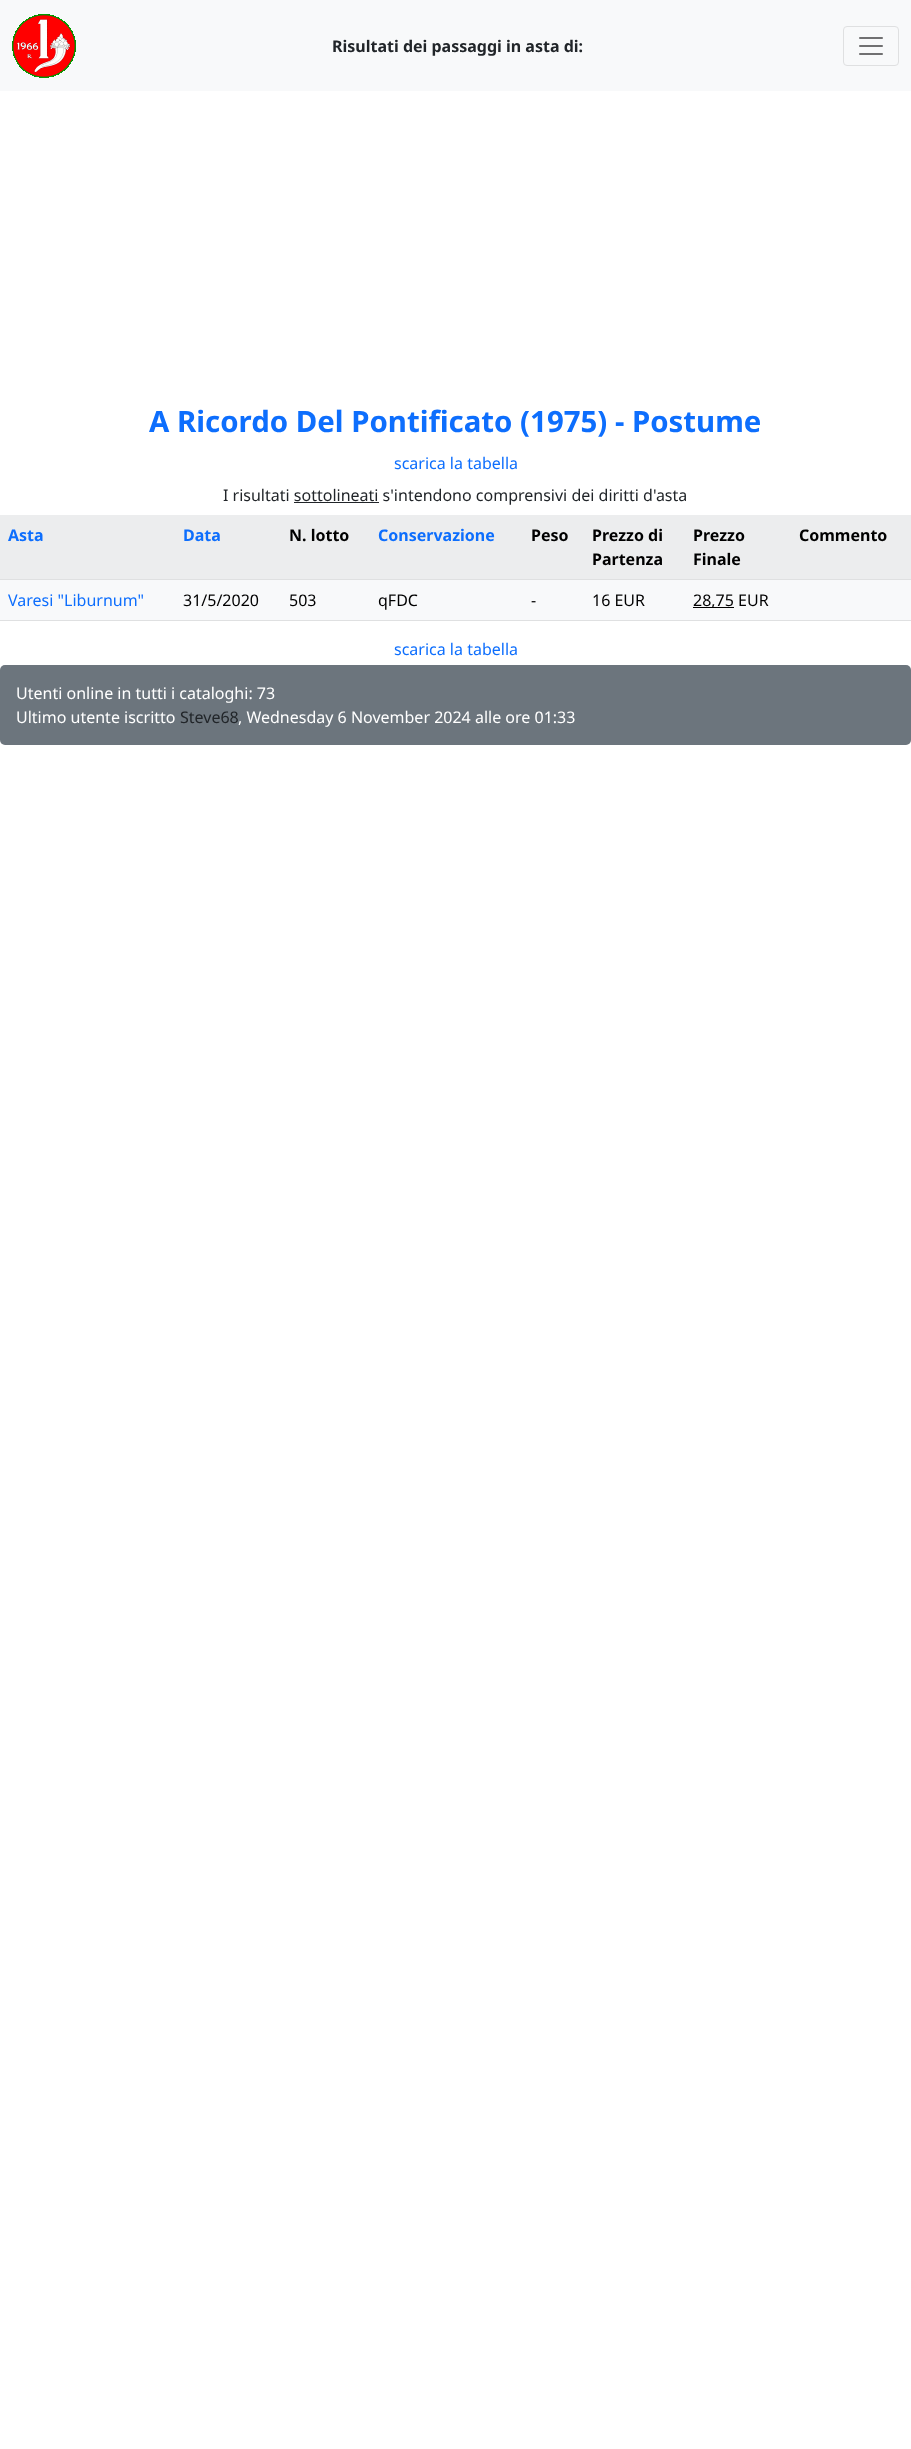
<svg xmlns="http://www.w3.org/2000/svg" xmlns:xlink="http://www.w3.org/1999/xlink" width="911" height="2449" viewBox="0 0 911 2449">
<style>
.cls-1{font:bold 16px Noto Sans;fill:#212529}
.cls-2{font:bold 29.4px Noto Sans;fill:#0d6efd}
.cls-3{font:16px Noto Sans;fill:#0d6efd}
.cls-4{font:16px Noto Sans;fill:#212529}
.cls-5{font:bold 16px Noto Sans;fill:#0d6efd}
.cls-6{font:bold 16px Noto Sans;fill:#000000}
.cls-7{font:16px Noto Sans;fill:#000000}
.cls-8{font:16px Noto Sans;fill:#ffffff}
</style>
<rect width="100%" height="100%" fill="#ffffff"/>
<rect fill="#f8f9fa" x="0" y="0" width="911" height="91"/>
<image xlink:href="image0.png" x="12" y="14" width="64" height="64"/>
<rect fill="none" stroke="#dfe0e1" x="843.5" y="26.5" width="55" height="39" rx="3.5"/>
<image xlink:href="image1.png" x="859" y="37" width="24" height="18"/>
<rect fill="#212529" x="294" y="502" width="85" height="1"/>
<rect fill="#ecedee" x="0" y="515" width="911" height="64"/>
<rect fill="#dfe0e1" x="0" y="579" width="911" height="1"/>
<rect fill="#f8f9fa" x="0" y="580" width="911" height="40"/>
<rect fill="#000000" x="693" y="607" width="41" height="1"/>
<rect fill="#dfe0e1" x="0" y="620" width="911" height="1"/>
<rect fill="#6c757d" x="0" y="665" width="911" height="80" rx="5"/>
<text class="cls-1" x="332" y="52">Risultati dei passaggi in asta di:</text>
<text class="cls-2" x="149" y="432">A Ricordo Del Pontificato (1975) - Postume</text>
<text class="cls-3" x="394" y="469">scarica la tabella</text>
<text class="cls-4" x="223" y="501">I risultati sottolineati s'intendono comprensivi dei diritti d'asta</text>
<text class="cls-5" x="8" y="541">Asta</text>
<text class="cls-5" x="183" y="541">Data</text>
<text class="cls-6" x="289" y="541">N. lotto</text>
<text class="cls-5" x="378" y="541">Conservazione</text>
<text class="cls-6" x="531" y="541">Peso</text>
<text class="cls-6"><tspan x="592" y="541">Prezzo di</tspan><tspan x="592" y="565">Partenza</tspan></text>
<text class="cls-6"><tspan x="693" y="541">Prezzo</tspan><tspan x="693" y="565">Finale</tspan></text>
<text class="cls-6" x="799" y="541">Commento</text>
<text class="cls-3" x="8" y="606">Varesi "Liburnum"</text>
<text class="cls-7" x="183" y="606">31/5/2020</text>
<text class="cls-7" x="289" y="606">503</text>
<text class="cls-7" x="378" y="606">qFDC</text>
<text class="cls-7" x="531" y="606">-</text>
<text class="cls-7" x="592" y="606">16 EUR</text>
<text class="cls-7" x="693" y="606">28,75 EUR</text>
<text class="cls-3" x="394" y="655">scarica la tabella</text>
<text class="cls-8"><tspan x="16" y="699">Utenti online in tutti i cataloghi: 73</tspan><tspan x="16" y="723">Ultimo utente iscritto</tspan></text>
<text class="cls-4" x="180" y="723">Steve68</text>
<text class="cls-8" x="238" y="723">, Wednesday 6 November 2024 alle ore 01:33</text>
</svg>
